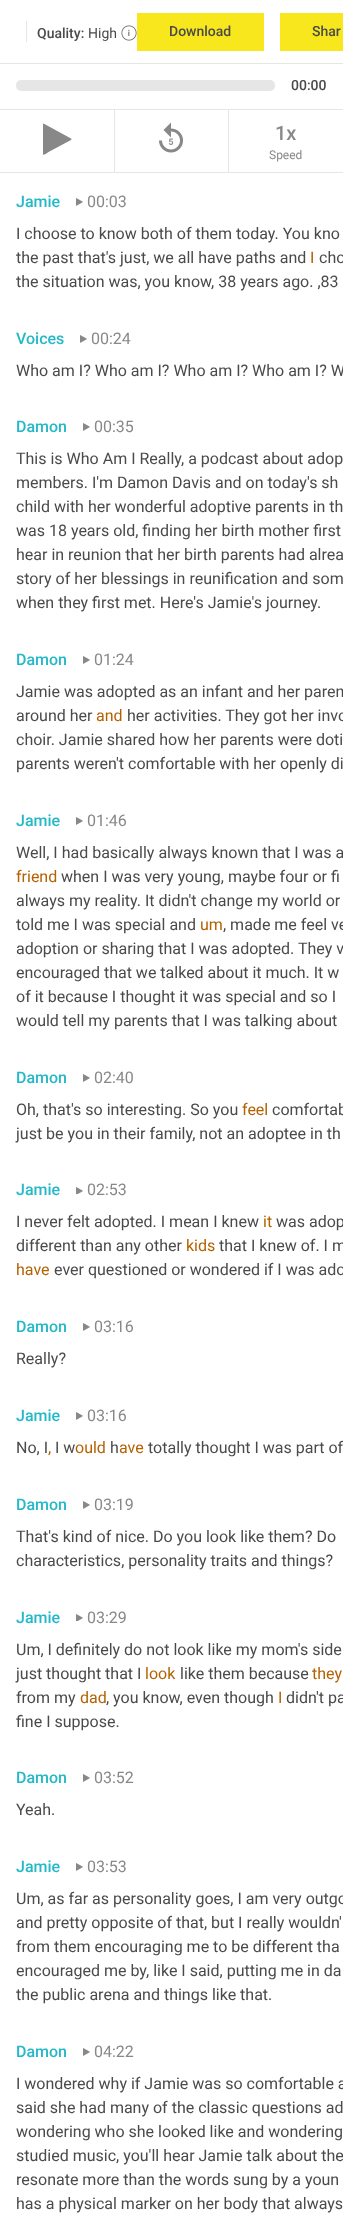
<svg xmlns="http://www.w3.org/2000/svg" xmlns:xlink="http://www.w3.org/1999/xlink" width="343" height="2231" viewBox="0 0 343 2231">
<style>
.cls-1{font:500 14px Roboto;fill:#4a4a4a}
.cls-2{font:14px Roboto;fill:#4a4a4a}
.cls-3{font:500 20px Roboto;fill:#888888}
.cls-4{font:12px Roboto;fill:#888888}
.cls-5{font:500 16px Roboto;fill:#25b9c8}
.cls-6{font:16px Roboto;fill:#888888}
.cls-7{font:16px Roboto;fill:#4a4a4a}
.cls-8{font:16px Roboto;fill:#b46100}
</style>
<rect width="100%" height="100%" fill="#ffffff"/>
<rect fill="#e6e6e6" x="0" y="63" width="343" height="1"/>
<rect fill="#e6e6e6" x="26" y="21" width="1" height="21"/>
<image xlink:href="image0.png" x="121" y="25" width="16" height="16"/>
<rect fill="#f8e71c" x="137" y="13" width="127" height="38"/>
<rect fill="#f8e71c" x="280" y="13" width="63" height="38"/>
<rect fill="#e6e6e6" x="16" y="80" width="259" height="11" rx="5"/>
<rect fill="#e6e6e6" x="0" y="109" width="343" height="1"/>
<rect fill="#e6e6e6" x="114" y="109" width="1" height="64"/>
<rect fill="#e6e6e6" x="0" y="172" width="115" height="1"/>
<path fill="#888888" d="M71 140L48.5 152C48 152.5 44 155.5 43 154.5V124L43.5 123.5L71 138.5L71.5 139Z"/>
<rect fill="#e6e6e6" x="228" y="109" width="1" height="64"/>
<rect fill="#e6e6e6" x="115" y="172" width="228" height="1"/>
<image xlink:href="image1.png" x="159" y="122" width="24" height="31"/>
<image xlink:href="image2.png" x="76" y="198" width="7" height="8"/>
<image xlink:href="image2.png" x="80" y="335" width="7" height="8"/>
<image xlink:href="image2.png" x="83" y="423" width="7" height="8"/>
<image xlink:href="image2.png" x="83" y="656" width="7" height="8"/>
<image xlink:href="image2.png" x="76" y="817" width="7" height="8"/>
<image xlink:href="image2.png" x="83" y="1074" width="7" height="8"/>
<image xlink:href="image3.png" x="76" y="1187" width="7" height="7"/>
<image xlink:href="image2.png" x="83" y="1323" width="7" height="8"/>
<image xlink:href="image2.png" x="76" y="1412" width="7" height="8"/>
<image xlink:href="image2.png" x="83" y="1501" width="7" height="8"/>
<image xlink:href="image3.png" x="76" y="1614" width="7" height="7"/>
<image xlink:href="image2.png" x="83" y="1774" width="7" height="8"/>
<image xlink:href="image2.png" x="76" y="1863" width="7" height="8"/>
<image xlink:href="image2.png" x="83" y="2048" width="7" height="8"/>
<text class="cls-1" x="37" y="38">Quality:</text>
<text class="cls-2" x="88" y="38">High</text>
<text class="cls-1" x="169" y="36">Download</text>
<text class="cls-1" x="312" y="36">Shar</text>
<text class="cls-1" x="291" y="90">00:00</text>
<text class="cls-3" x="275" y="140">1x</text>
<text class="cls-4" x="269" y="159">Speed</text>
<text class="cls-5" x="16" y="207">Jamie</text>
<text class="cls-6" x="87" y="207">00:03</text>
<text class="cls-7"><tspan x="16" y="239">I choose to know both of them today. You kno</tspan><tspan x="16" y="263">the past that's just, we all have paths and</tspan></text>
<text class="cls-8" x="310" y="263">I</text>
<text class="cls-7" x="319" y="263">cho</text>
<text class="cls-7" x="16" y="287">the situation was, you know, 38 years ago. ,83</text>
<text class="cls-5" x="16" y="344">Voices</text>
<text class="cls-6" x="91" y="344">00:24</text>
<text class="cls-7" x="16" y="376">Who am I? Who am I? Who am I? Who am I? W</text>
<text class="cls-5" x="16" y="432">Damon</text>
<text class="cls-6" x="94" y="432">00:35</text>
<text class="cls-7"><tspan x="16" y="464">This is Who Am I Really, a podcast about adop</tspan><tspan x="16" y="488">members. I'm Damon Davis and on today's sh</tspan><tspan x="16" y="512">child with her wonderful adoptive parents in th</tspan><tspan x="16" y="536">was 18 years old, finding her birth mother first</tspan><tspan x="16" y="560">hear in reunion that her birth parents had alrea</tspan><tspan x="16" y="584">story of her blessings in reunification and som</tspan><tspan x="16" y="608">when they first met. Here's Jamie's journey.</tspan></text>
<text class="cls-5" x="16" y="665">Damon</text>
<text class="cls-6" x="94" y="665">01:24</text>
<text class="cls-7"><tspan x="16" y="697">Jamie was adopted as an infant and her paren</tspan><tspan x="16" y="721">around her</tspan></text>
<text class="cls-8" x="96" y="721">and</text>
<text class="cls-7" x="127" y="721">her activities. They got her invo</text>
<text class="cls-7"><tspan x="16" y="745">choir. Jamie shared how her parents were doti</tspan><tspan x="16" y="769">parents weren't comfortable with her openly di</tspan></text>
<text class="cls-5" x="16" y="826">Jamie</text>
<text class="cls-6" x="87" y="826">01:46</text>
<text class="cls-7" x="16" y="858">Well, I had basically always known that I was a</text>
<text class="cls-8" x="16" y="882">friend</text>
<text class="cls-7" x="61" y="882">when I was very young, maybe four or fi</text>
<text class="cls-7"><tspan x="16" y="906">always my reality. It didn't change my world or</tspan><tspan x="16" y="930">told me I was special and</tspan></text>
<text class="cls-8" x="200" y="930">um</text>
<text class="cls-7" x="223" y="930">, made me feel ve</text>
<text class="cls-7"><tspan x="16" y="954">adoption or sharing that I was adopted. They v</tspan><tspan x="16" y="978">encouraged that we talked about it much. It w</tspan><tspan x="16" y="1002">of it because I thought it was special and so I</tspan><tspan x="16" y="1026">would tell my parents that I was talking about</tspan></text>
<text class="cls-5" x="16" y="1083">Damon</text>
<text class="cls-6" x="94" y="1083">02:40</text>
<text class="cls-7" x="16" y="1115">Oh, that's so interesting. So you</text>
<text class="cls-8" x="242" y="1115">feel</text>
<text class="cls-7" x="272" y="1115">comfortab</text>
<text class="cls-7" x="16" y="1139">just be you in their family, not an adoptee in th</text>
<text class="cls-5" x="16" y="1195">Jamie</text>
<text class="cls-6" x="87" y="1195">02:53</text>
<text class="cls-7" x="16" y="1227">I never felt adopted. I mean I knew</text>
<text class="cls-8" x="263" y="1227">it</text>
<text class="cls-7" x="276" y="1227">was adop</text>
<text class="cls-7" x="16" y="1251">different than any other</text>
<text class="cls-8" x="186" y="1251">kids</text>
<text class="cls-7" x="219" y="1251">that I knew of. I m</text>
<text class="cls-8" x="16" y="1275">have</text>
<text class="cls-7" x="54" y="1275">ever questioned or wondered if I was ado</text>
<text class="cls-5" x="16" y="1332">Damon</text>
<text class="cls-6" x="94" y="1332">03:16</text>
<text class="cls-7" x="16" y="1364">Really?</text>
<text class="cls-5" x="16" y="1421">Jamie</text>
<text class="cls-6" x="87" y="1421">03:16</text>
<text class="cls-7" x="16" y="1453">No, I</text>
<text class="cls-8" x="48" y="1453">,</text>
<text class="cls-7" x="55" y="1453">I w</text>
<text class="cls-8" x="75" y="1453">ould</text>
<text class="cls-7" x="110" y="1453">h</text>
<text class="cls-8" x="119" y="1453">ave</text>
<text class="cls-7" x="148" y="1453">totally thought I was part of</text>
<text class="cls-5" x="16" y="1510">Damon</text>
<text class="cls-6" x="94" y="1510">03:19</text>
<text class="cls-7"><tspan x="16" y="1542">That's kind of nice. Do you look like them? Do</tspan><tspan x="16" y="1566">characteristics, personality traits and things?</tspan></text>
<text class="cls-5" x="16" y="1623">Jamie</text>
<text class="cls-6" x="87" y="1623">03:29</text>
<text class="cls-7"><tspan x="16" y="1655">Um, I definitely do not look like my mom's side</tspan><tspan x="16" y="1679">just thought that I</tspan></text>
<text class="cls-8" x="145" y="1679">look</text>
<text class="cls-7" x="180" y="1679">like them because</text>
<text class="cls-8" x="312" y="1679">they</text>
<text class="cls-7" x="16" y="1703">from my</text>
<text class="cls-8" x="80" y="1703">dad</text>
<text class="cls-7" x="106" y="1703">, you know, even though</text>
<text class="cls-8" x="278" y="1703">I</text>
<text class="cls-7" x="286" y="1703">didn't pa</text>
<text class="cls-7" x="16" y="1727">fine I suppose.</text>
<text class="cls-5" x="16" y="1783">Damon</text>
<text class="cls-6" x="94" y="1783">03:52</text>
<text class="cls-7" x="16" y="1815">Yeah.</text>
<text class="cls-5" x="16" y="1872">Jamie</text>
<text class="cls-6" x="87" y="1872">03:53</text>
<text class="cls-7"><tspan x="16" y="1904">Um, as far as personality goes, I am very outgo</tspan><tspan x="16" y="1928">and pretty opposite of that, but I really wouldn'</tspan><tspan x="16" y="1952">from them encouraging me to be different tha</tspan><tspan x="16" y="1976">encouraged me by, like I said, putting me in da</tspan><tspan x="16" y="2000">the public arena and things like that.</tspan></text>
<text class="cls-5" x="16" y="2057">Damon</text>
<text class="cls-6" x="94" y="2057">04:22</text>
<text class="cls-7"><tspan x="16" y="2089">I wondered why if Jamie was so comfortable a</tspan><tspan x="16" y="2113">said she had many of the classic questions ad</tspan><tspan x="16" y="2137">wondering who she looked like and wondering</tspan><tspan x="16" y="2161">studied music, you'll hear Jamie talk about the</tspan><tspan x="16" y="2185">resonate more than the words sung by a youn</tspan><tspan x="16" y="2209">has a physical marker on her body that always</tspan></text>
</svg>
